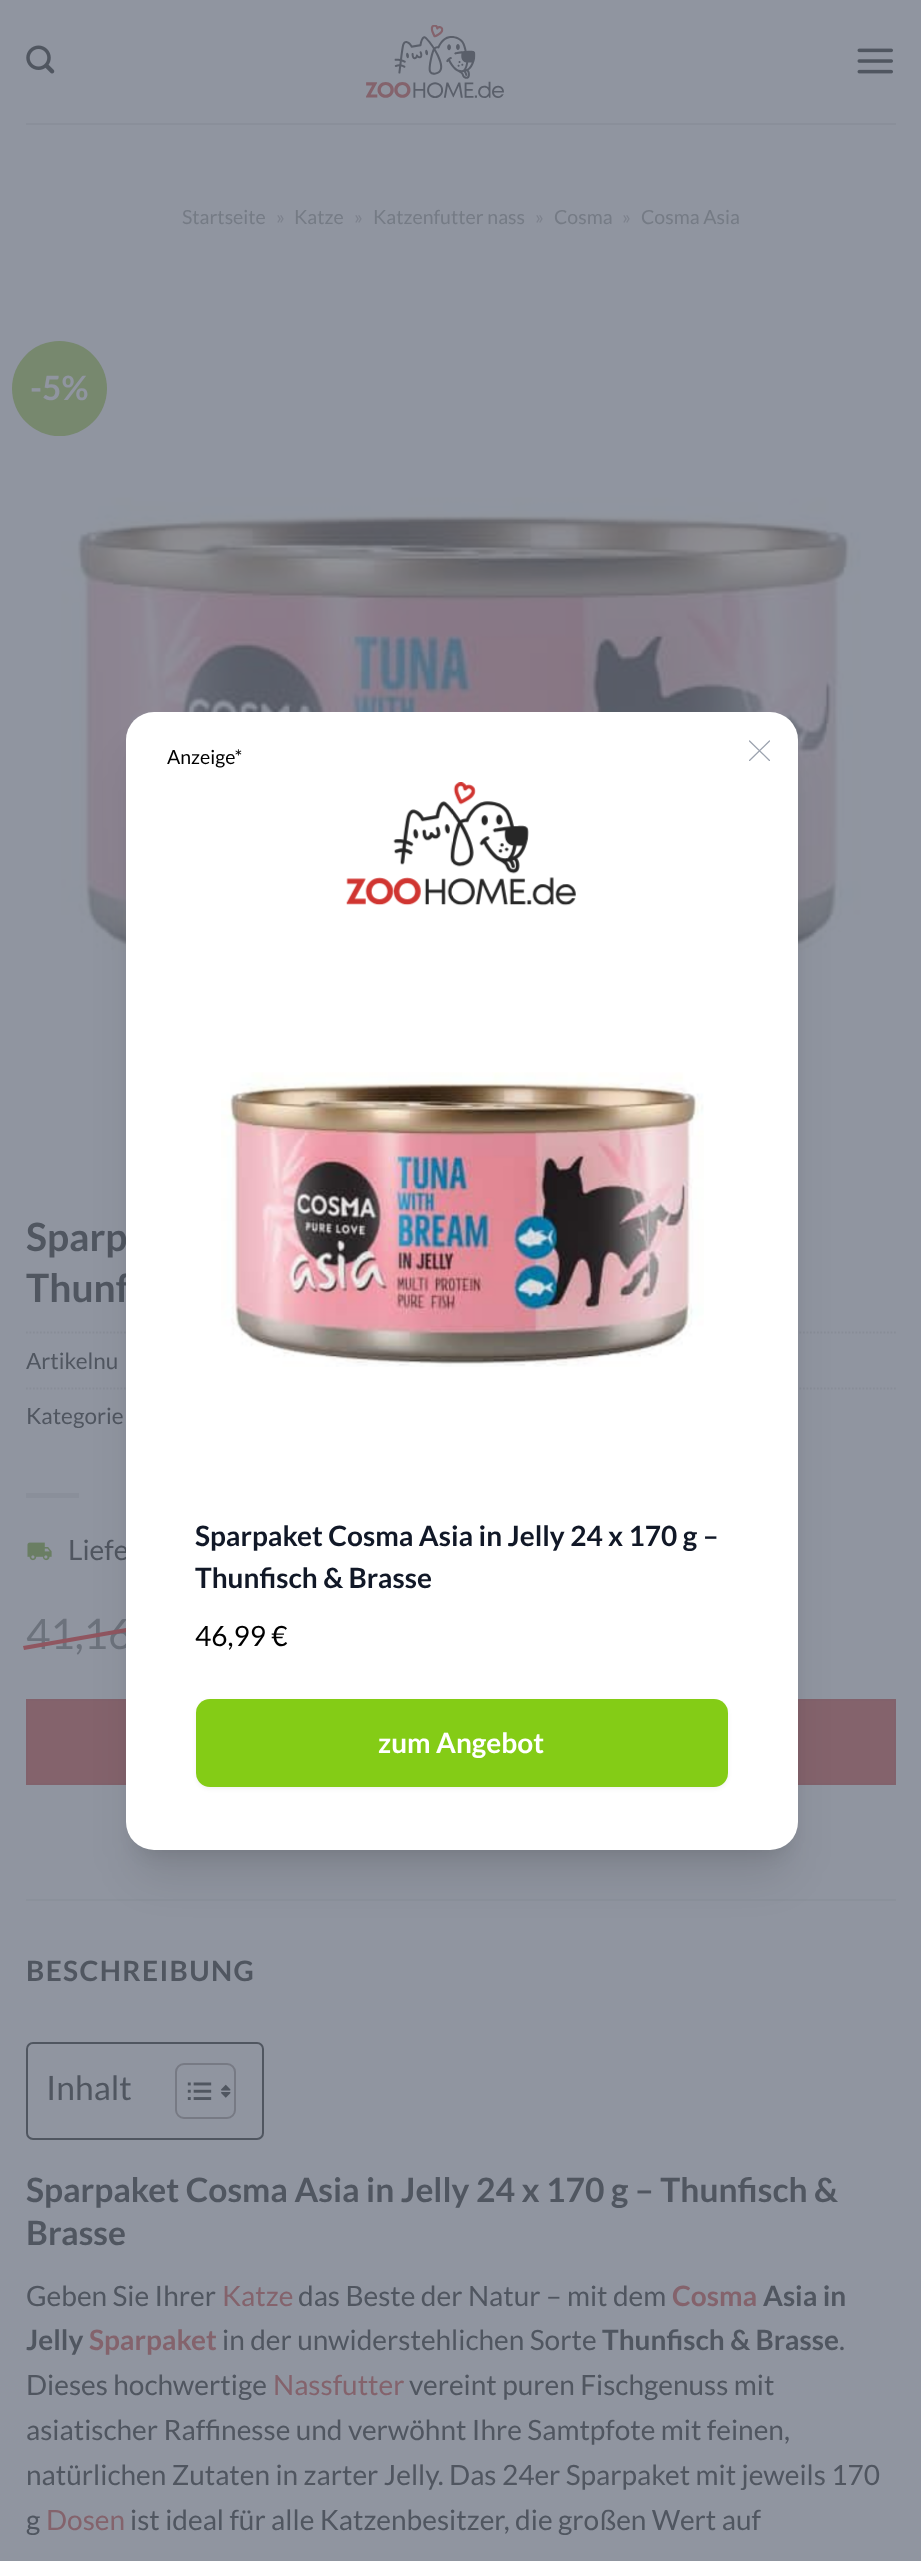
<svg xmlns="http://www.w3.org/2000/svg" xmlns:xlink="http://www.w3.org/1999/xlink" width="921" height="2561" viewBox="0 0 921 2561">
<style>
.cls-1{font:19.5px Lato;fill:#757b85}
.cls-2{font:19.5px Lato;fill:#7d828d}
.cls-3{font:bold 33.6px Lato;fill:#9095a0}
.cls-4{font:bold 39px Lato;fill:#505660}
.cls-5{font:22.5px Lato;fill:#505660}
.cls-6{font:28px Lato;fill:#505660}
.cls-7{font:42px Lato;fill:#6c727c}
.cls-8{font:bold 28px Lato;letter-spacing:1.4px;fill:#505660}
.cls-9{font:33.6px Lato;fill:#505660}
.cls-10{font:bold 33.6px Lato;fill:#505660}
.cls-11{font:28px Lato;fill:#84636c}
.cls-12{font:bold 28px Lato;fill:#84636c}
.cls-13{font:bold 28px Lato;fill:#505660}
.cls-14{font:19.5px Lato;fill:#000000}
.cls-15{font:bold 28px Lato;fill:#111827}
.cls-16{font:28px Lato;fill:#000000}
.cls-17{font:bold 28px Lato;fill:#ffffff}
</style>
<defs>
<clipPath id="clip1"><rect x="749" y="740" width="21" height="21"/></clipPath>
</defs>
<rect width="100%" height="100%" fill="#9095a0"/>
<image xlink:href="image0.png" x="26" y="45" width="29" height="29"/>
<image xlink:href="image1.png" x="366" y="25" width="138" height="73"/>
<image xlink:href="image2.png" x="857" y="48" width="36" height="26"/>
<rect fill="#8a8f9a" x="26" y="123" width="870" height="2"/>
<circle fill="#77886e" cx="59.5" cy="388.5" r="47.5"/>
<image xlink:href="image3.png" x="61" y="497" width="800" height="488"/>
<path fill="none" stroke="#888d97" stroke-width="1.8" stroke-dasharray="1.75 1.75" d="M26 1332.5H896"/>
<path fill="none" stroke="#888d97" stroke-width="1.8" stroke-dasharray="1.75 1.75" d="M26 1388.5H896"/>
<rect fill="#8a8f9a" x="26" y="1493" width="53" height="5"/>
<image xlink:href="image4.png" x="27" y="1542" width="25" height="19"/>
<rect fill="#84636c" stroke="#82626c" stroke-width="2" x="27" y="1700" width="868" height="84"/>
<rect fill="#8b919b" x="26" y="1899" width="870" height="2"/>
<rect fill="none" stroke="#505660" stroke-width="2" x="27" y="2043" width="236" height="96" rx="6"/>
<rect fill="none" stroke="#777a84" stroke-width="2" x="176" y="2064" width="59" height="54" rx="8"/>
<image xlink:href="image5.png" x="187" y="2082" width="25" height="18"/>
<image xlink:href="image6.png" x="221" y="2084" width="10" height="14"/>
<text class="cls-1" x="182" y="224">Startseite</text>
<text class="cls-2" x="276" y="224">»</text>
<text class="cls-1" x="294" y="224">Katze</text>
<text class="cls-2" x="354" y="224">»</text>
<text class="cls-1" x="373" y="224">Katzenfutter nass</text>
<text class="cls-2" x="535" y="224">»</text>
<text class="cls-1" x="554" y="224">Cosma</text>
<text class="cls-2" x="622" y="224">»</text>
<text class="cls-1" x="641" y="224">Cosma Asia</text>
<text class="cls-3" x="30" y="400">-5%</text>
<text class="cls-4"><tspan x="26" y="1251">Sparp</tspan><tspan x="26" y="1302">Thunf</tspan></text>
<text class="cls-5" x="26" y="1369">Artikelnu</text>
<text class="cls-5" x="26" y="1424">Kategorie</text>
<text class="cls-6" x="68" y="1560">Liefe</text>
<text class="cls-7" x="26" y="1649">41,16</text>
<path fill="#905660" d="M23 1646L172 1620L173 1624L24 1650Z"/>
<text class="cls-8" x="26" y="1981">BESCHREIBUNG</text>
<text class="cls-9" x="46" y="2100">Inhalt</text>
<text class="cls-10"><tspan x="26" y="2202">Sparpaket Cosma Asia in Jelly 24 x 170 g – Thunfisch &amp;</tspan><tspan x="26" y="2245">Brasse</tspan></text>
<text class="cls-6" x="26" y="2306">Geben Sie Ihrer</text>
<text class="cls-11" x="222" y="2306">Katze</text>
<text class="cls-6" x="298" y="2306">das Beste der Natur – mit dem</text>
<text class="cls-12" x="672" y="2306">Cosma</text>
<text class="cls-13" x="763" y="2306">Asia in</text>
<text class="cls-13" x="26" y="2350">Jelly</text>
<text class="cls-12" x="89" y="2350">Sparpaket</text>
<text class="cls-6" x="222" y="2350">in der unwiderstehlichen Sorte</text>
<text class="cls-13" x="602" y="2350">Thunfisch &amp; Brasse</text>
<text class="cls-6" x="839" y="2350">.</text>
<text class="cls-6" x="26" y="2395">Dieses hochwertige</text>
<text class="cls-11" x="273" y="2395">Nassfutter</text>
<text class="cls-6" x="409" y="2395">vereint puren Fischgenuss mit</text>
<text class="cls-6"><tspan x="26" y="2440">asiatischer Raffinesse und verwöhnt Ihre Samtpfote mit feinen,</tspan><tspan x="26" y="2485">natürlichen Zutaten in zarter Jelly. Das 24er Sparpaket mit jeweils 170</tspan><tspan x="26" y="2530">g</tspan></text>
<text class="cls-11" x="46" y="2530">Dosen</text>
<text class="cls-6" x="130" y="2530">ist ideal für alle Katzenbesitzer, die großen Wert auf</text>
<rect fill="#000000" fill-opacity="0.1" filter="blur(9px)" x="137" y="737" width="651" height="1116" rx="18"/>
<rect fill="#000000" fill-opacity="0.1" filter="blur(22px)" x="135" y="756" width="654" height="1120" rx="19"/>
<rect fill="#ffffff" x="126" y="712" width="672" height="1138" rx="28"/>
<text class="cls-14" x="167" y="764">Anzeige*</text>
<g clip-path="url(#clip1)">
<path fill="none" stroke="#9ca3af" stroke-width="1.3" stroke-linecap="round" stroke-linejoin="round" d="M749.5 760.5L769.5 741M749.5 741L769.5 760.5"/>
</g>
<image xlink:href="image7.png" x="346" y="782" width="230" height="124"/>
<image xlink:href="image8.png" x="221" y="1072" width="483" height="295"/>
<text class="cls-15"><tspan x="195" y="1546">Sparpaket Cosma Asia in Jelly 24 x 170 g –</tspan><tspan x="195" y="1588">Thunfisch &amp; Brasse</tspan></text>
<text class="cls-16" x="195" y="1646">46,99 €</text>
<rect fill="#000000" fill-opacity="0.05" filter="blur(2px)" x="196" y="1701" width="532" height="88" rx="14"/>
<rect fill="#84cc16" x="196" y="1699" width="532" height="88" rx="14"/>
<text class="cls-17" x="378" y="1753">zum Angebot</text>
</svg>
